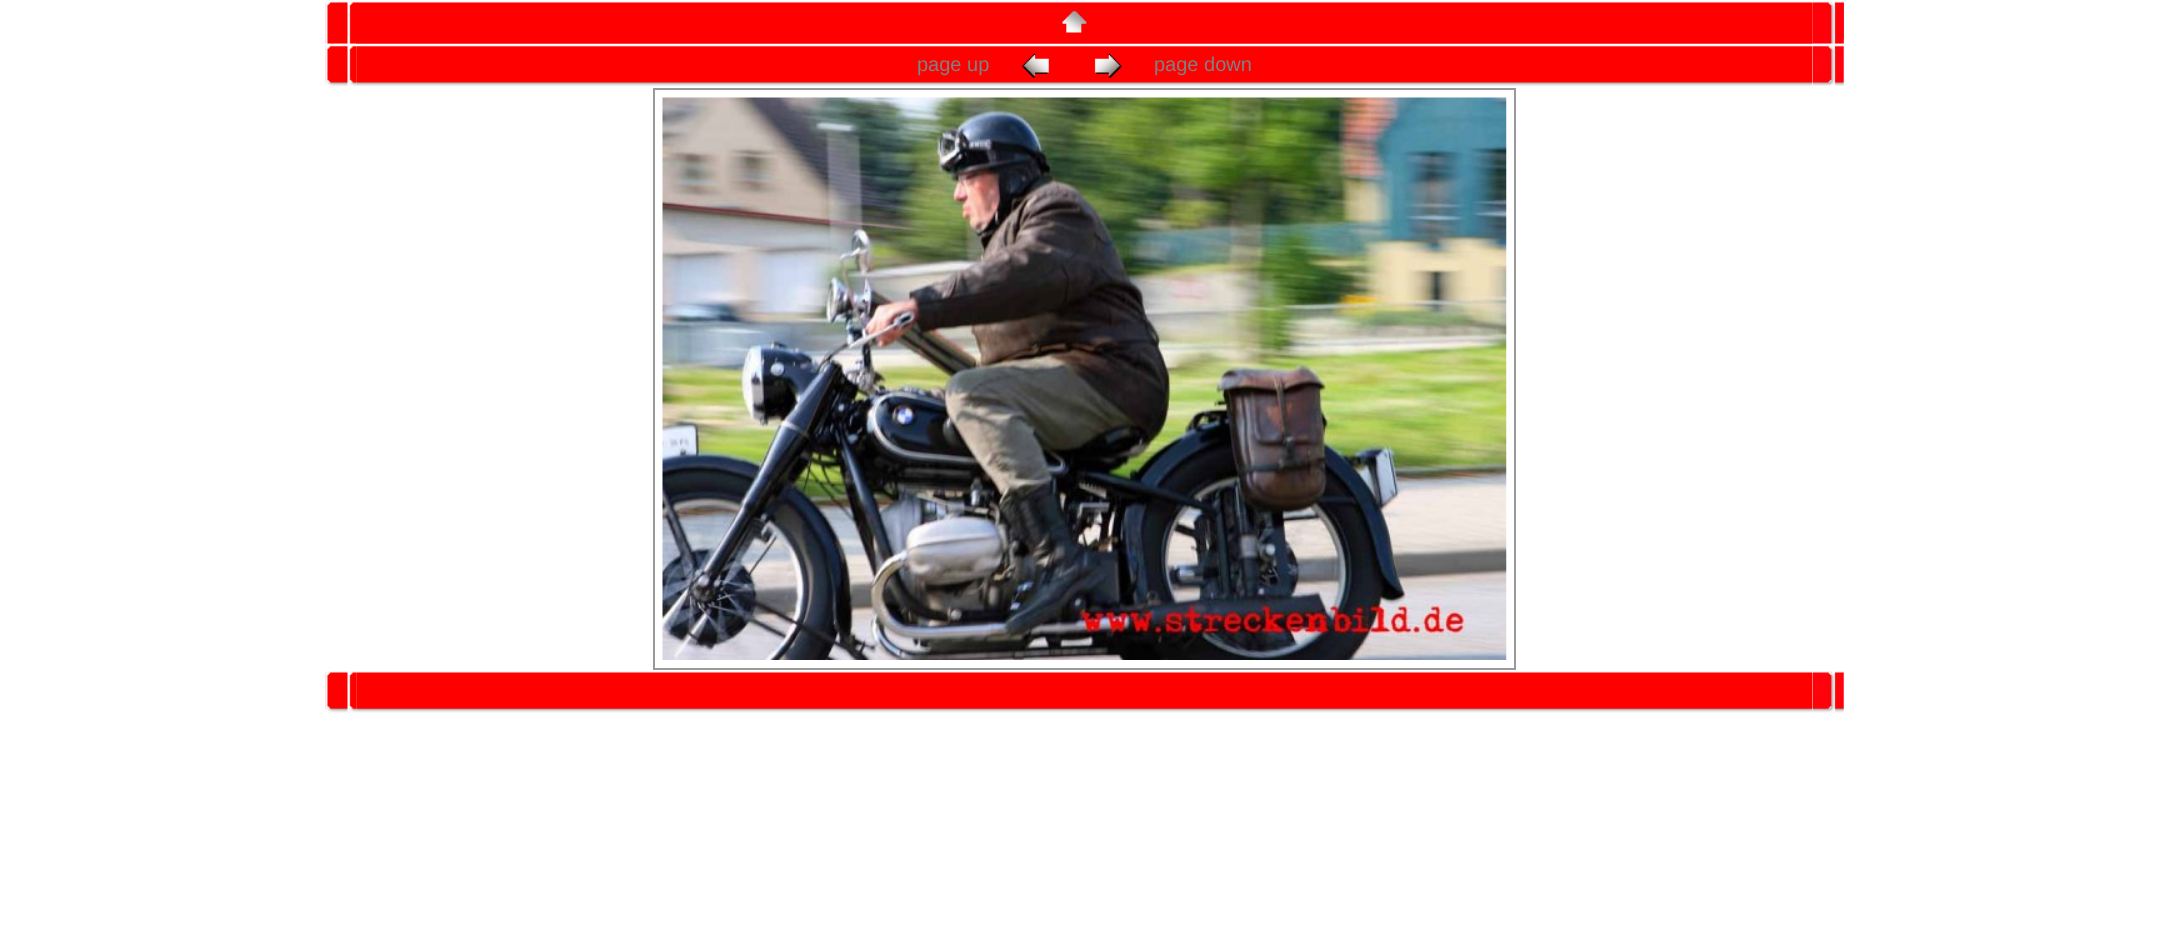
<svg xmlns="http://www.w3.org/2000/svg" xmlns:xlink="http://www.w3.org/1999/xlink" width="2168" height="925" viewBox="0 0 2168 925">
<style>
.cls-1{font:20px Liberation Sans;fill:#808080}
</style>
<rect width="100%" height="100%" fill="#ffffff"/>
<image xlink:href="image0.png" x="356" y="1" width="1488" height="42"/>
<image xlink:href="image1.png" x="325" y="1" width="32" height="43"/>
<rect fill="#ff0000" x="356" y="38" width="1457" height="6"/>
<image xlink:href="image2.png" x="1062" y="11" width="25" height="22"/>
<image xlink:href="image3.png" x="1812" y="1" width="32" height="43"/>
<image xlink:href="image4.png" x="325" y="43" width="32" height="44"/>
<image xlink:href="image5.png" x="356" y="43" width="1457" height="44"/>
<image xlink:href="image6.png" x="1022" y="53" width="27" height="25"/>
<image xlink:href="image7.png" x="1094" y="53" width="28" height="25"/>
<image xlink:href="image8.png" x="1812" y="43" width="32" height="43"/>
<rect fill="none" stroke="#999999" x="653.5" y="88.5" width="862" height="581"/>
<rect fill="none" stroke="#999999" x="654.5" y="89.5" width="860" height="579"/>
<image xlink:href="image9.png" x="662" y="97" width="845" height="563"/>
<image xlink:href="image10.png" x="325" y="671" width="32" height="42"/>
<image xlink:href="image11.png" x="356" y="671" width="1457" height="42"/>
<image xlink:href="image12.png" x="1812" y="671" width="32" height="42"/>
<text class="cls-1" x="917" y="71">page up</text>
<text class="cls-1" x="1154" y="71">page down</text>
</svg>
